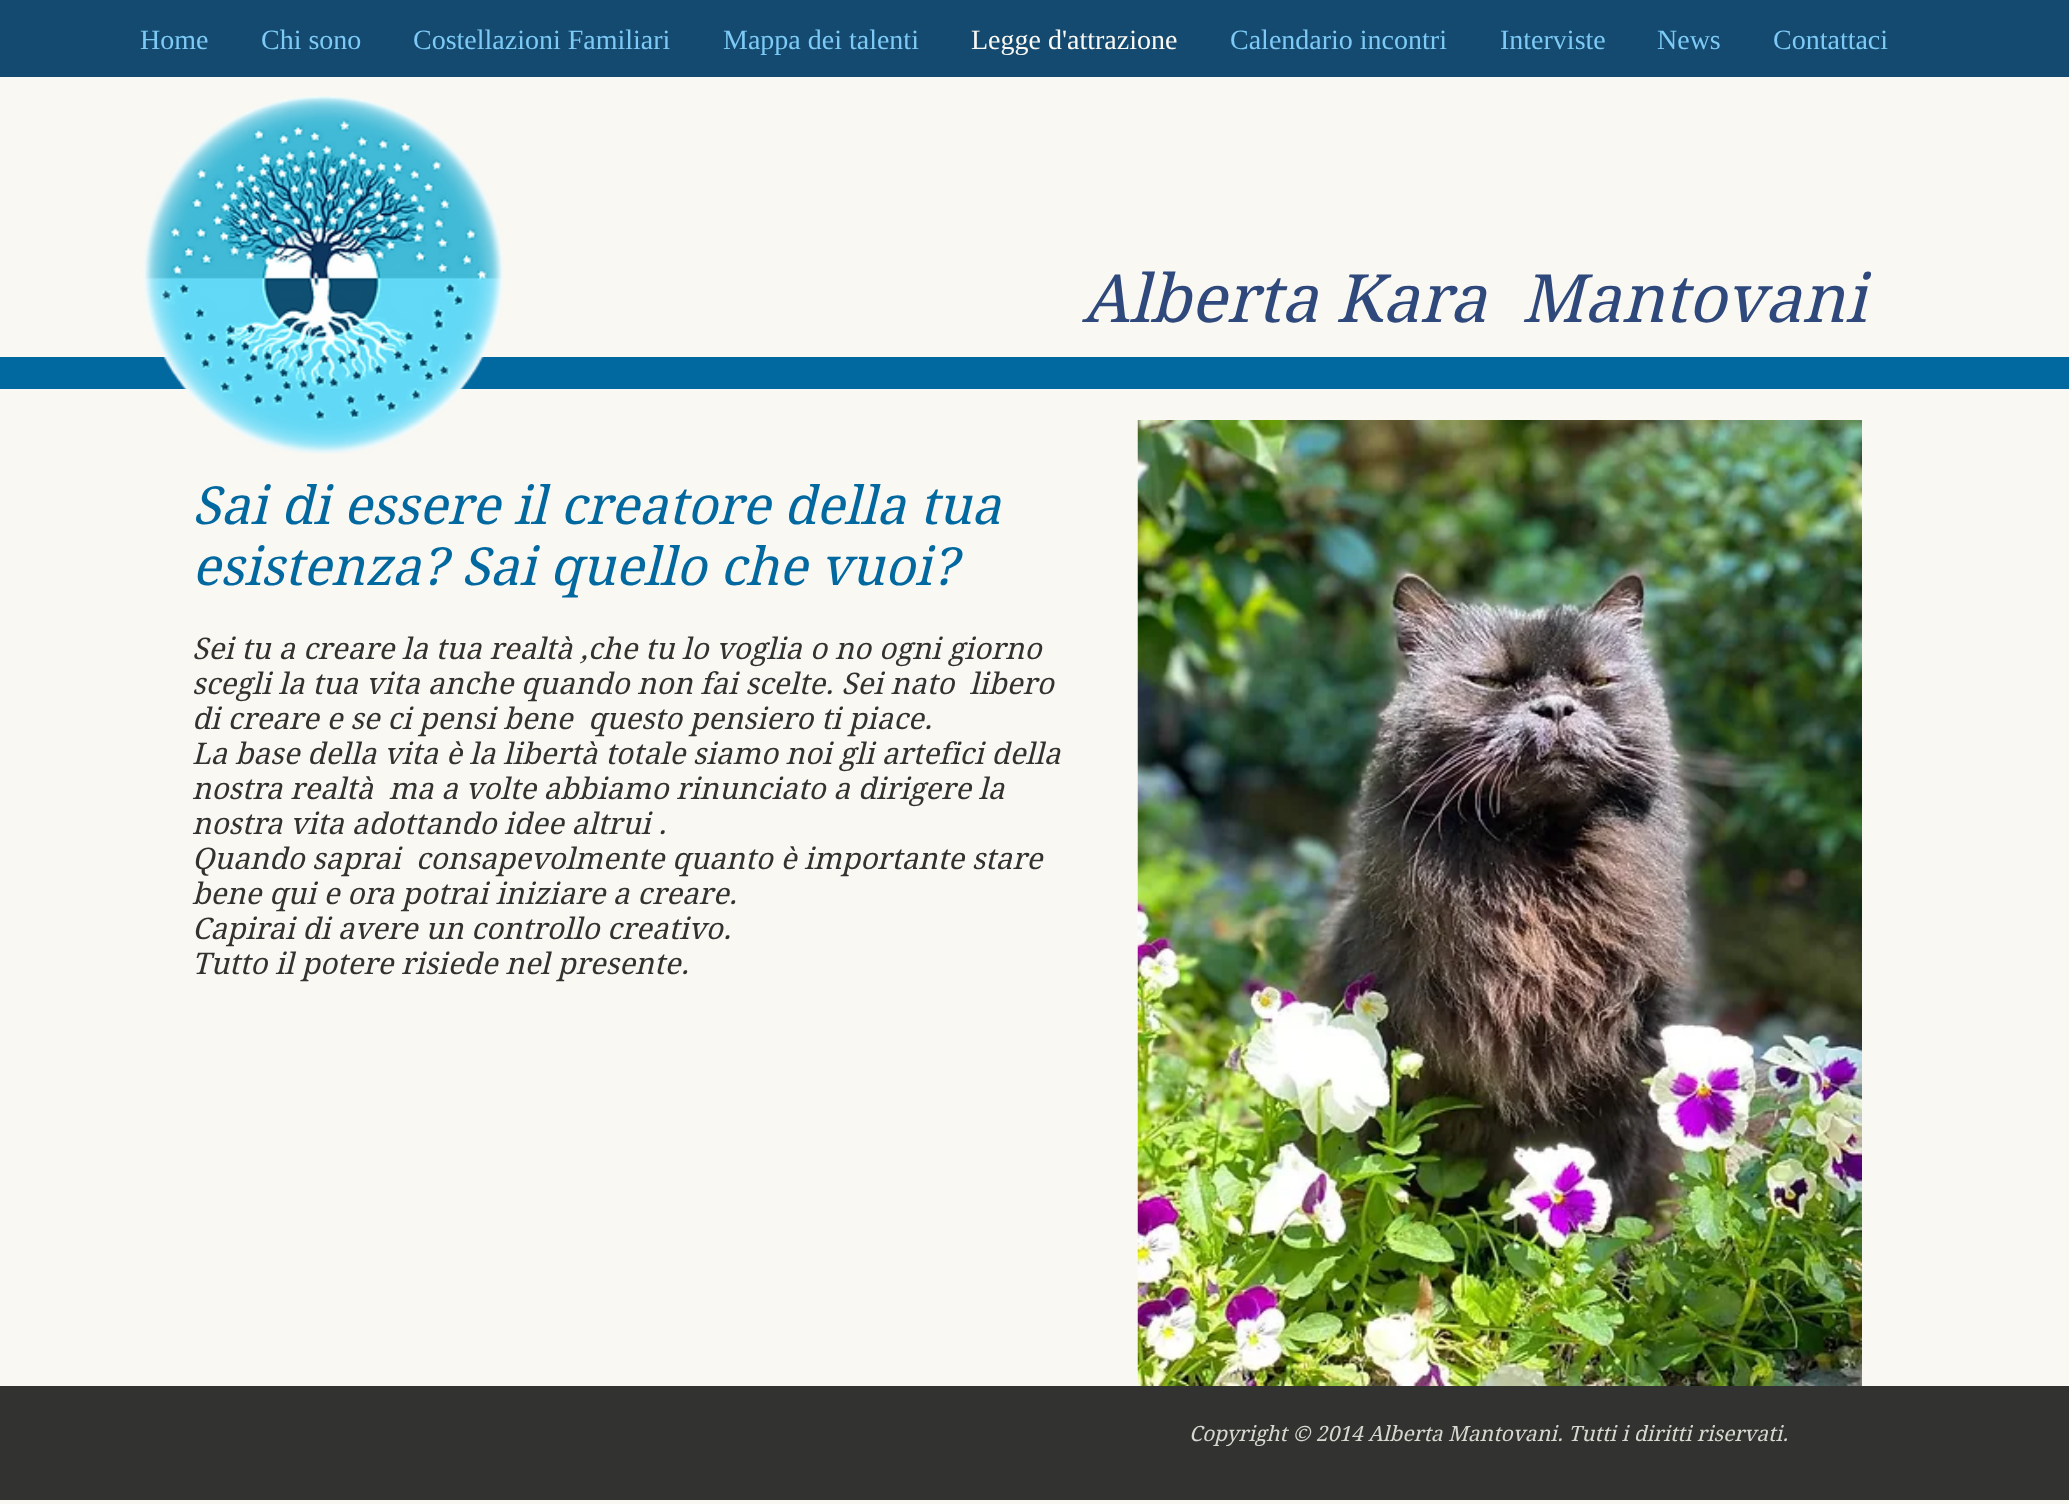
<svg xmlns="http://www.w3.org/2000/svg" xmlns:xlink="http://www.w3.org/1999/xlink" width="2069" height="1504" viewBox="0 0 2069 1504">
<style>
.cls-1{font:28px Liberation Serif;fill:#7ccaf5}
.cls-2{font:28px Liberation Serif;fill:#faf8f2}
.cls-3{font:italic 66.5px 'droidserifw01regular';fill:#2f497c}
.cls-4{font:italic 52.5px 'droidserifw01regular';fill:#0268a0}
.cls-5{font:italic 29.75px 'droidserifw01regular';fill:#323230}
.cls-6{font:italic 21px 'droidserifw01regular';fill:#d7d7d0}
</style>
<rect width="100%" height="100%" fill="#faf8f2"/>
<rect fill="#144a70" x="0" y="0" width="2069" height="77"/>
<rect fill="#0268a0" x="0" y="357" width="2069" height="32"/>
<image xlink:href="image0.png" x="143" y="96" width="361" height="358"/>
<image xlink:href="image1.png" x="1137" y="420" width="725" height="966"/>
<rect fill="#323230" x="0" y="1386" width="2069" height="114"/>
<text class="cls-1" x="140" y="49">Home</text>
<text class="cls-1" x="261" y="49">Chi sono</text>
<text class="cls-1" x="413" y="49">Costellazioni Familiari</text>
<text class="cls-1" x="723" y="49">Mappa dei talenti</text>
<text class="cls-2" x="971" y="49">Legge d'attrazione</text>
<text class="cls-1" x="1230" y="49">Calendario incontri</text>
<text class="cls-1" x="1500" y="49">Interviste</text>
<text class="cls-1" x="1657" y="49">News</text>
<text class="cls-1" x="1773" y="49">Contattaci</text>
<text class="cls-3" xml:space="preserve" x="1082" y="322">Alberta Kara  Mantovani</text>
<text class="cls-4"><tspan x="192" y="524">Sai di essere il creatore della tua</tspan><tspan x="192" y="585">esistenza? Sai quello che vuoi?</tspan></text>
<text class="cls-5" xml:space="preserve"><tspan x="192" y="659">Sei tu a creare la tua realtà ,che tu lo voglia o no ogni giorno</tspan><tspan x="192" y="694">scegli la tua vita anche quando non fai scelte. Sei nato  libero</tspan><tspan x="192" y="729">di creare e se ci pensi bene  questo pensiero ti piace.</tspan><tspan x="192" y="764">La base della vita è la libertà totale siamo noi gli artefici della</tspan><tspan x="192" y="799">nostra realtà  ma a volte abbiamo rinunciato a dirigere la</tspan><tspan x="192" y="834">nostra vita adottando idee altrui .</tspan><tspan x="192" y="869">Quando saprai  consapevolmente quanto è importante stare</tspan><tspan x="192" y="904">bene qui e ora potrai iniziare a creare.</tspan><tspan x="192" y="939">Capirai di avere un controllo creativo.</tspan><tspan x="192" y="974">Tutto il potere risiede nel presente.</tspan></text>
<text class="cls-6" x="1189" y="1441">Copyright © 2014 Alberta Mantovani. Tutti i diritti riservati.</text>
</svg>
